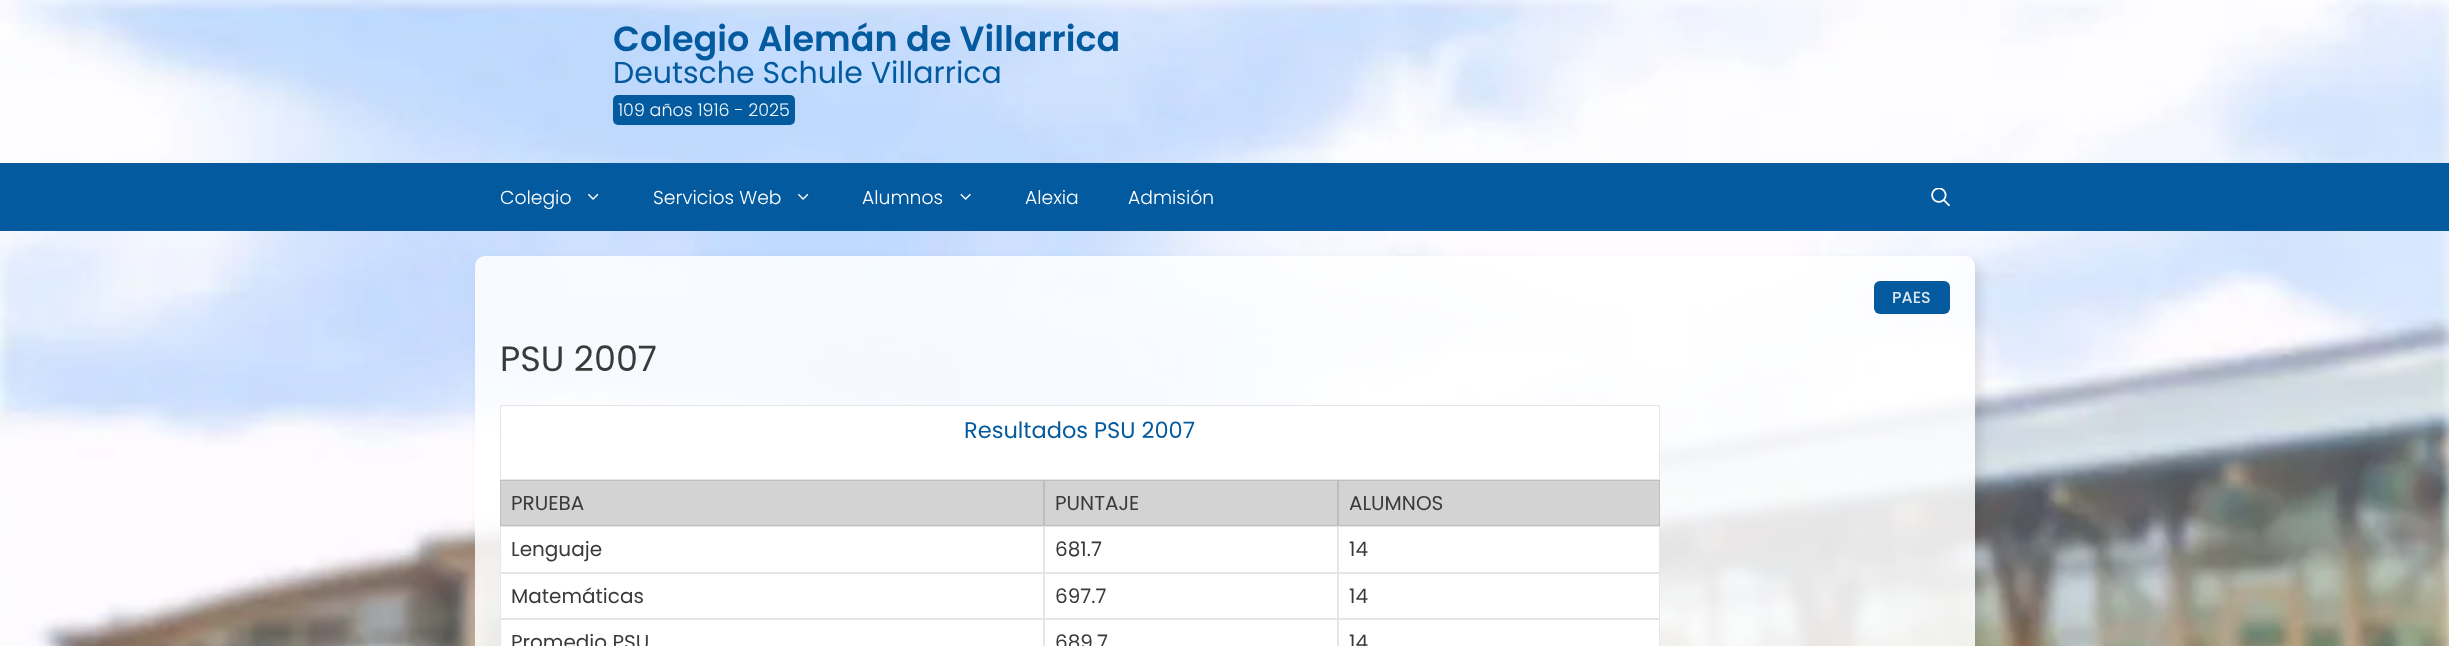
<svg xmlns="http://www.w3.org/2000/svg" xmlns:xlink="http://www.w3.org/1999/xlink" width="2449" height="646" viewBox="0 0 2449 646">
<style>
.cls-1{font:600 35px Poppins;fill:#035a9e}
.cls-2{font:30px Poppins;fill:#035a9e}
.cls-3{font:300 17.5px Poppins;fill:#f2f7fa}
.cls-4{font:300 18.75px Poppins;fill:#ffffff}
.cls-5{font:500 16px Poppins;fill:#d9e6f0}
.cls-6{font:35px Poppins;fill:#3a3a3a}
.cls-7{font:22.5px Poppins;fill:#035a9e}
.cls-8{font:20px Poppins;fill:#3a3a3a}
</style>
<defs>
<clipPath id="clip1"><path d="M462 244H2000V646H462ZM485 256H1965C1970.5 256 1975 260.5 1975 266V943C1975 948.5 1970.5 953 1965 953H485C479.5 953 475 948.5 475 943V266C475 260.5 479.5 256 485 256Z" clip-rule="evenodd"/></clipPath>
</defs>
<rect width="100%" height="100%" fill="#ffffff"/>
<image xlink:href="image0.png" x="0" y="0" width="2449" height="646"/>
<rect fill="#035a9e" x="613" y="95" width="182" height="30" rx="5"/>
<rect fill="#035a9e" x="0" y="163" width="2449" height="68"/>
<image xlink:href="image1.png" x="588" y="193" width="11" height="7"/>
<image xlink:href="image1.png" x="798" y="193" width="11" height="7"/>
<image xlink:href="image2.png" x="960" y="193" width="11" height="7"/>
<image xlink:href="image3.png" x="1931" y="188" width="19" height="18"/>
<g clip-path="url(#clip1)">
<rect fill="#000000" fill-opacity="0.1" filter="blur(6px)" x="481" y="263" width="1500" height="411" rx="10"/>
</g>
<rect fill="#ffffff" fill-opacity="0.85" x="475" y="256" width="1500" height="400" rx="10"/>
<rect fill="#035a9e" x="1874" y="281" width="76" height="33" rx="6"/>
<rect fill="#d3d3d3" x="501" y="481" width="1158" height="44"/>
<rect fill="#ffffff" stroke="#e6e6e6" x="500.5" y="405.5" width="1159" height="74"/>
<rect fill="none" stroke="#bebebe" x="500.5" y="480.5" width="543" height="45"/>
<rect fill="none" stroke="#bebebe" x="1044.5" y="480.5" width="293" height="45"/>
<rect fill="none" stroke="#bebebe" x="1338.5" y="480.5" width="321" height="45"/>
<rect fill="#ffffff" stroke="#e6e6e6" x="500.5" y="526.5" width="543" height="46"/>
<rect fill="#ffffff" stroke="#e6e6e6" x="1044.5" y="526.5" width="293" height="46"/>
<rect fill="#ffffff" stroke="#e6e6e6" x="1338.5" y="526.5" width="321" height="46"/>
<rect fill="#ffffff" stroke="#e6e6e6" x="500.5" y="573.5" width="543" height="45"/>
<rect fill="#ffffff" stroke="#e6e6e6" x="1044.5" y="573.5" width="293" height="45"/>
<rect fill="#ffffff" stroke="#e6e6e6" x="1338.5" y="573.5" width="321" height="45"/>
<rect fill="#ffffff" stroke="#e6e6e6" x="500.5" y="619.5" width="543" height="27"/>
<rect fill="#ffffff" stroke="#e6e6e6" x="1044.5" y="619.5" width="293" height="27"/>
<rect fill="#ffffff" stroke="#e6e6e6" x="1338.5" y="619.5" width="321" height="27"/>
<text class="cls-1" x="613" y="51">Colegio Alemán de Villarrica</text>
<text class="cls-2" x="613" y="83">Deutsche Schule Villarrica</text>
<text class="cls-3" x="618" y="116">109 años 1916 - 2025</text>
<text class="cls-4" x="500" y="204">Colegio</text>
<text class="cls-4" x="653" y="204">Servicios Web</text>
<text class="cls-4" x="862" y="204">Alumnos</text>
<text class="cls-4" x="1025" y="204">Alexia</text>
<text class="cls-4" x="1128" y="204">Admisión</text>
<text class="cls-5" x="1892" y="303">PAES</text>
<text class="cls-6" x="500" y="371">PSU 2007</text>
<text class="cls-7" x="964" y="438">Resultados PSU 2007</text>
<text class="cls-8" x="511" y="510">PRUEBA</text>
<text class="cls-8" x="1055" y="510">PUNTAJE</text>
<text class="cls-8" x="1349" y="510">ALUMNOS</text>
<text class="cls-8" x="511" y="556">Lenguaje</text>
<text class="cls-8" x="1055" y="556">681.7</text>
<text class="cls-8" x="1349" y="556">14</text>
<text class="cls-8" x="511" y="603">Matemáticas</text>
<text class="cls-8" x="1055" y="603">697.7</text>
<text class="cls-8" x="1349" y="603">14</text>
<text class="cls-8" x="511" y="649">Promedio PSU</text>
<text class="cls-8" x="1055" y="649">689.7</text>
<text class="cls-8" x="1349" y="649">14</text>
</svg>
